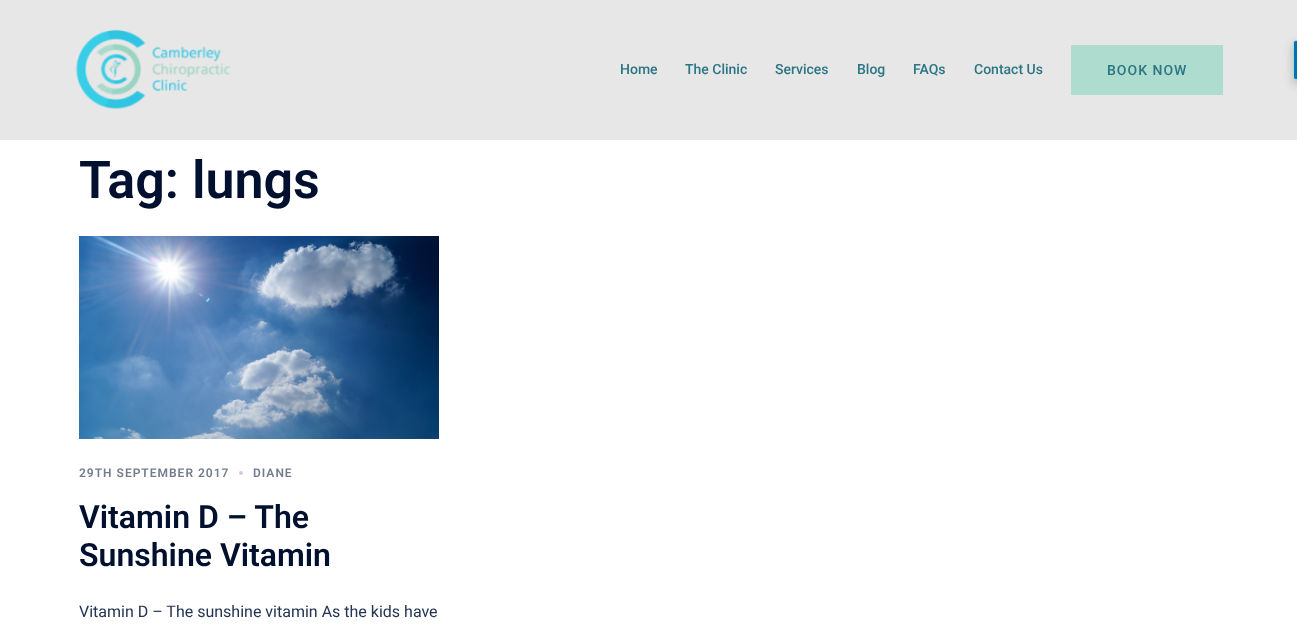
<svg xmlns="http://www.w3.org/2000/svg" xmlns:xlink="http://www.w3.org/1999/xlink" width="1297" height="632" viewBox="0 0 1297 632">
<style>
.cls-1{font:500 14px Roboto;fill:#2b7684}
.cls-2{font:500 14px Roboto;letter-spacing:1px;fill:#2b7684}
.cls-3{font:600 52px Roboto;fill:#00102e}
.cls-4{font:600 12px Roboto;letter-spacing:1px;fill:#737c8c}
.cls-5{font:600 32px Roboto;fill:#00102e}
.cls-6{font:16px Roboto;fill:#233452}
</style>
<rect width="100%" height="100%" fill="#ffffff"/>
<rect fill="#e8e7e7" x="0" y="0" width="1297" height="140"/>
<image xlink:href="image0.png" x="75" y="29" width="156" height="81"/>
<rect fill="#aedccf" x="1071" y="45" width="152" height="50"/>
<image xlink:href="image1.png" x="79" y="236" width="360" height="203"/>
<circle fill="#cccfd5" cx="241" cy="473" r="2"/>
<rect fill="#000000" fill-opacity="0.2" filter="blur(5px)" x="1293" y="44" width="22" height="40" rx="3"/>
<path fill="#0073b7" stroke="#aedccf" d="M1296 40.5H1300.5V79.5H1296C1294.5 79.5 1293.5 78.5 1293.5 77V43C1293.5 41.5 1294.5 40.5 1296 40.5Z"/>
<text class="cls-1" x="620" y="74">Home</text>
<text class="cls-1" x="685" y="74">The Clinic</text>
<text class="cls-1" x="775" y="74">Services</text>
<text class="cls-1" x="857" y="74">Blog</text>
<text class="cls-1" x="913" y="74">FAQs</text>
<text class="cls-1" x="974" y="74">Contact Us</text>
<text class="cls-2" x="1107" y="75">BOOK NOW</text>
<text class="cls-3" x="79" y="198">Tag: lungs</text>
<text class="cls-4" x="79" y="477">29TH SEPTEMBER 2017</text>
<text class="cls-4" x="253" y="477">DIANE</text>
<text class="cls-5"><tspan x="79" y="528">Vitamin D – The</tspan><tspan x="79" y="566">Sunshine Vitamin</tspan></text>
<text class="cls-6" x="79" y="617">Vitamin D – The sunshine vitamin As the kids have</text>
</svg>
